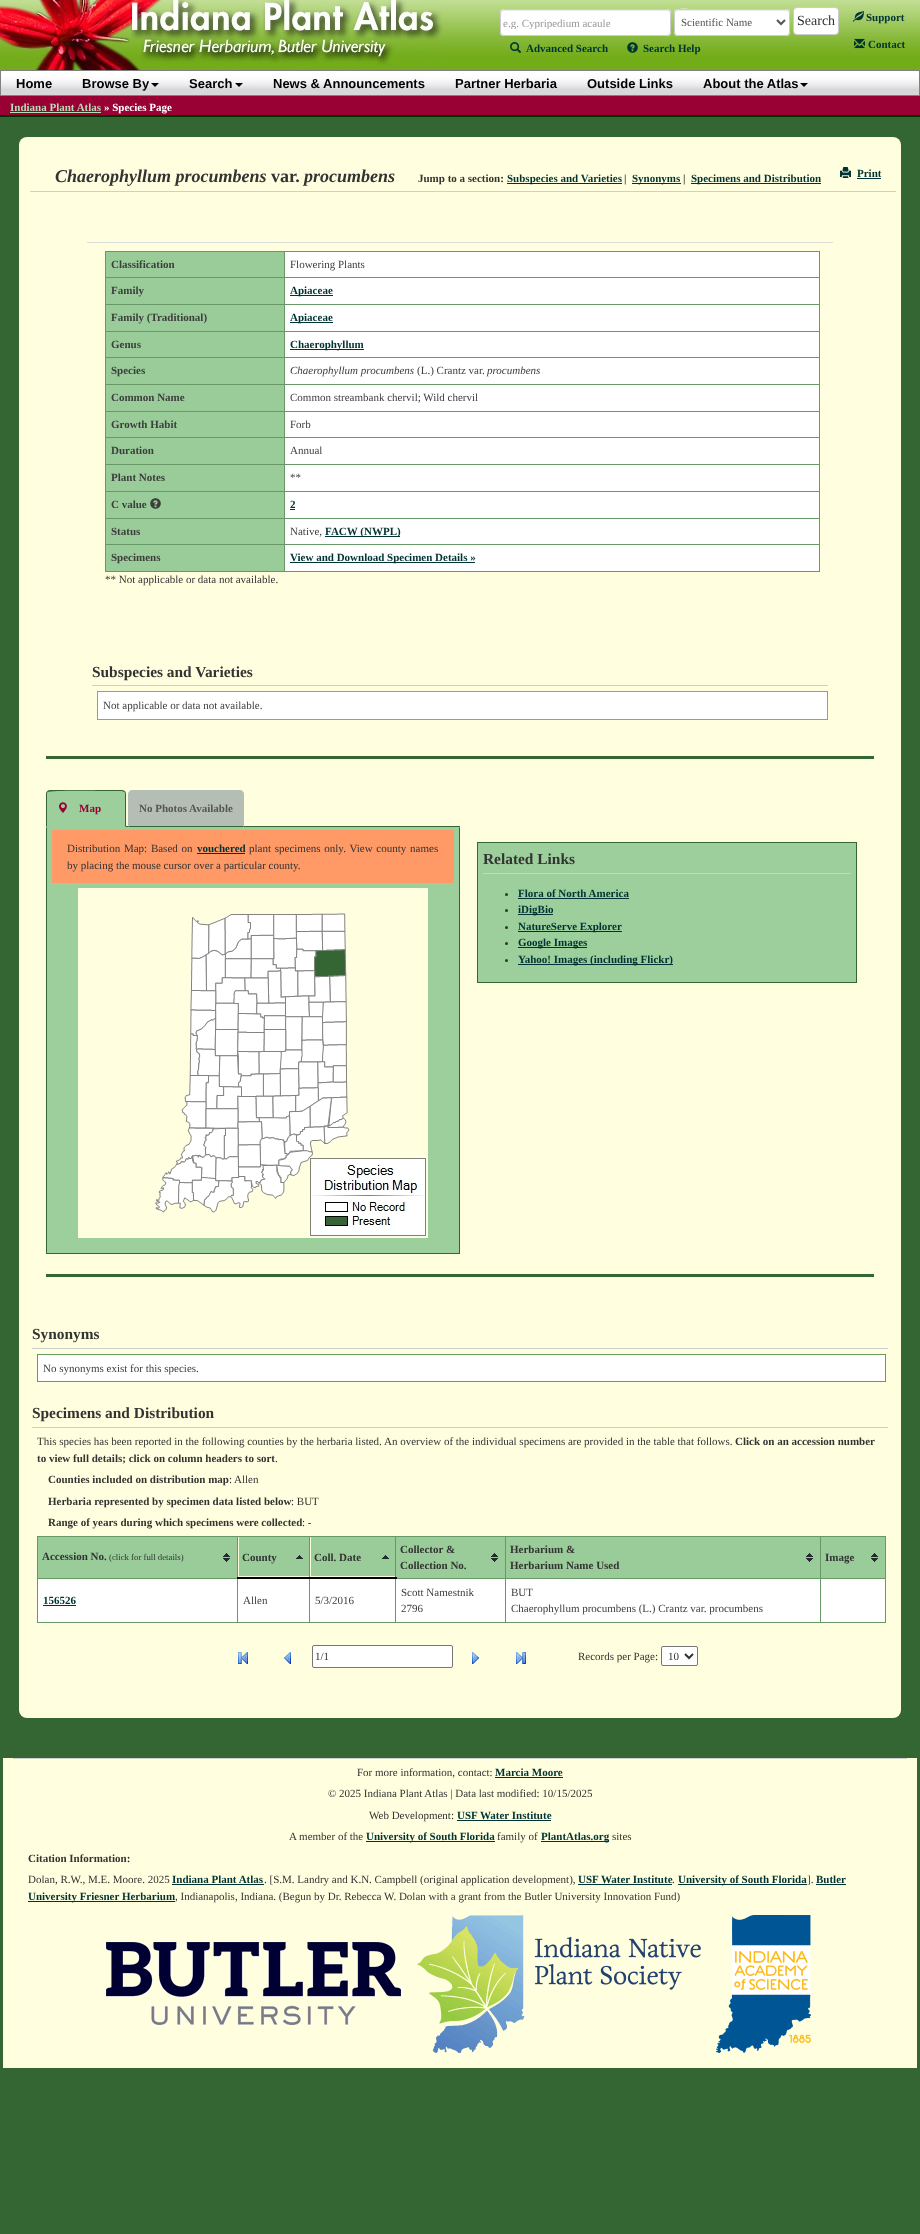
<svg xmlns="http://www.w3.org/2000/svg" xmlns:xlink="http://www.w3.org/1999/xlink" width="920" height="2234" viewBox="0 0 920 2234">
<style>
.cls-1{font:11px Liberation Serif;fill:#999999}
.cls-2{font:11px Liberation Serif;fill:#555555}
.cls-3{font:14px Liberation Serif;fill:#333333}
.cls-4{font:bold 11px Liberation Serif;fill:#003333}
.cls-5{font:bold 13px Liberation Sans;fill:#000000}
.cls-6{font:bold 11px Liberation Serif;fill:#b5dfb5}
.cls-7{font:bold 11px Liberation Serif;fill:#ffffff}
.cls-8{font:italic bold 18px Liberation Serif;fill:#333333}
.cls-9{font:bold 18px Liberation Serif;fill:#333333}
.cls-10{font:bold 11px Liberation Serif;fill:#333333}
.cls-11{font:bold 11px Liberation Serif;fill:#3d3d3d}
.cls-12{font:11px Liberation Serif;fill:#3d3d3d}
.cls-13{font:italic 11px Liberation Serif;fill:#3d3d3d}
.cls-14{font:11px Liberation Serif;fill:#333333}
.cls-15{font:bold 15.4px Liberation Serif;fill:#333333}
.cls-16{font:bold 11px Liberation Serif;fill:#990033}
.cls-17{font:bold 11px Liberation Serif;fill:#555555}
.cls-18{font:8.75px Liberation Serif;fill:#333333}
</style>
<defs>
<linearGradient id="g1" gradientUnits="userSpaceOnUse" x1="460" y1="71" x2="460" y2="95"><stop offset="0" stop-color="#ffffff"/><stop offset="0.2" stop-color="#fefefe"/><stop offset="0.36" stop-color="#f9f9f9"/><stop offset="0.6" stop-color="#e8eaea"/><stop offset="0.76" stop-color="#d8d8da"/><stop offset="1" stop-color="#d8d8da"/></linearGradient>
<clipPath id="clip1"><rect x="503" y="17" width="165" height="12"/></clipPath>
</defs>
<rect width="100%" height="100%" fill="#336633"/>
<rect fill="#72ac19" x="443" y="56" width="477" height="14"/>
<image xlink:href="image0.png" x="443" y="0" width="477" height="56"/>
<image xlink:href="image1.png" x="0" y="0" width="443" height="70"/>
<rect fill="#ffffff" x="500" y="9" width="171" height="27" rx="4"/>
<path fill="#ececec" d="M504 11H667C669 11 670 12 670 14V13C670 11 669 10 667 10H504C502 10 501 11 501 13V14C501 12 502 11 504 11Z"/>
<rect fill="none" stroke="#cccccc" x="500.5" y="9.5" width="170" height="26" rx="3.5"/>
<rect fill="#ffffff" x="674" y="9" width="116" height="27" rx="4"/>
<path fill="#ececec" d="M678 11H786C788 11 789 12 789 14C789 12 788 10 786 10H696C694 10 675 5 675 14C675 12 676 11 678 11Z"/>
<rect fill="none" stroke="#cccccc" x="674.5" y="9.5" width="115" height="26" rx="3.5"/>
<path fill="none" stroke="#555555" stroke-width="2" d="M777 20L781 24L785 20"/>
<rect fill="#ffffff" stroke="#cccccc" x="793.5" y="7.5" width="45" height="27" rx="3.5"/>
<image xlink:href="image2.png" x="510" y="42" width="11" height="11"/>
<image xlink:href="image3.png" x="627" y="42" width="11" height="11"/>
<image xlink:href="image4.png" x="853" y="11" width="11" height="11"/>
<image xlink:href="image5.png" x="854" y="38" width="11" height="11"/>
<rect fill="url(#g1)" x="1" y="71" width="918" height="24"/>
<rect fill="none" stroke="#808080" x="0.5" y="70.5" width="919" height="25"/>
<path fill="#000000" d="M151 83H159L155 87Z"/>
<path fill="#000000" d="M235 83H243L239 87Z"/>
<path fill="#000000" d="M800 83H808L804 87Z"/>
<rect fill="#990033" x="0" y="96" width="920" height="19"/>
<rect fill="#003300" x="0" y="115" width="920" height="2"/>
<rect fill="#b5dfb5" x="10" y="112" width="91" height="1"/>
<rect fill="#ffffdf" x="19" y="137" width="882" height="1581" rx="8"/>
<rect fill="#cfcfcf" x="30" y="191" width="866" height="1"/>
<rect fill="#003333" x="507" y="183" width="115" height="1"/>
<rect fill="#003333" x="632" y="183" width="49" height="1"/>
<rect fill="#003333" x="691" y="183" width="130" height="1"/>
<image xlink:href="image6.png" x="840" y="167" width="11" height="11"/>
<rect fill="#003333" x="857" y="178" width="24" height="1"/>
<rect fill="#dddddd" x="87" y="242" width="746" height="1"/>
<rect fill="#99cc99" x="106" y="252" width="178" height="25"/>
<rect fill="#669966" x="284" y="251" width="536" height="1"/>
<rect fill="#669966" x="284" y="277" width="536" height="1"/>
<rect fill="#669966" x="284" y="304" width="536" height="1"/>
<rect fill="#669966" x="284" y="331" width="536" height="1"/>
<rect fill="#669966" x="284" y="357" width="536" height="1"/>
<rect fill="#669966" x="284" y="384" width="536" height="1"/>
<rect fill="#669966" x="284" y="411" width="536" height="1"/>
<rect fill="#669966" x="284" y="437" width="536" height="1"/>
<rect fill="#669966" x="284" y="464" width="536" height="1"/>
<rect fill="#669966" x="284" y="491" width="536" height="1"/>
<rect fill="#669966" x="284" y="518" width="536" height="1"/>
<rect fill="#669966" x="284" y="544" width="536" height="1"/>
<rect fill="#669966" x="819" y="544" width="1" height="28"/>
<rect fill="#669966" x="284" y="571" width="536" height="1"/>
<rect fill="#669966" x="284" y="544" width="1" height="28"/>
<rect fill="#669966" x="105" y="544" width="180" height="1"/>
<rect fill="#669966" x="284" y="518" width="1" height="27"/>
<rect fill="#669966" x="105" y="518" width="180" height="1"/>
<rect fill="#669966" x="284" y="491" width="1" height="28"/>
<rect fill="#669966" x="105" y="491" width="180" height="1"/>
<rect fill="#669966" x="284" y="464" width="1" height="28"/>
<rect fill="#669966" x="105" y="464" width="180" height="1"/>
<rect fill="#669966" x="284" y="437" width="1" height="28"/>
<rect fill="#669966" x="105" y="437" width="180" height="1"/>
<rect fill="#669966" x="284" y="411" width="1" height="27"/>
<rect fill="#669966" x="105" y="411" width="180" height="1"/>
<rect fill="#669966" x="284" y="384" width="1" height="28"/>
<rect fill="#669966" x="105" y="384" width="180" height="1"/>
<rect fill="#669966" x="284" y="357" width="1" height="28"/>
<rect fill="#669966" x="105" y="357" width="180" height="1"/>
<rect fill="#669966" x="284" y="331" width="1" height="27"/>
<rect fill="#669966" x="105" y="331" width="180" height="1"/>
<rect fill="#669966" x="284" y="304" width="1" height="28"/>
<rect fill="#669966" x="105" y="304" width="180" height="1"/>
<rect fill="#669966" x="284" y="277" width="1" height="28"/>
<rect fill="#669966" x="105" y="277" width="180" height="1"/>
<rect fill="#669966" x="284" y="251" width="1" height="27"/>
<rect fill="#669966" x="105" y="251" width="180" height="1"/>
<rect fill="#669966" x="105" y="571" width="180" height="1"/>
<rect fill="#669966" x="105" y="544" width="1" height="28"/>
<rect fill="#669966" x="105" y="518" width="1" height="27"/>
<rect fill="#669966" x="105" y="491" width="1" height="28"/>
<rect fill="#669966" x="105" y="464" width="1" height="28"/>
<rect fill="#669966" x="105" y="437" width="1" height="28"/>
<rect fill="#669966" x="105" y="411" width="1" height="27"/>
<rect fill="#669966" x="105" y="384" width="1" height="28"/>
<rect fill="#669966" x="105" y="357" width="1" height="28"/>
<rect fill="#669966" x="105" y="331" width="1" height="27"/>
<rect fill="#669966" x="105" y="304" width="1" height="28"/>
<rect fill="#669966" x="105" y="277" width="1" height="28"/>
<rect fill="#669966" x="105" y="251" width="1" height="27"/>
<rect fill="#ffffff" x="285" y="252" width="534" height="25"/>
<rect fill="#669966" x="819" y="518" width="1" height="27"/>
<rect fill="#669966" x="819" y="491" width="1" height="28"/>
<rect fill="#669966" x="819" y="464" width="1" height="28"/>
<rect fill="#669966" x="819" y="437" width="1" height="28"/>
<rect fill="#669966" x="819" y="411" width="1" height="27"/>
<rect fill="#669966" x="819" y="384" width="1" height="28"/>
<rect fill="#669966" x="819" y="357" width="1" height="28"/>
<rect fill="#669966" x="819" y="331" width="1" height="27"/>
<rect fill="#669966" x="819" y="304" width="1" height="28"/>
<rect fill="#669966" x="819" y="277" width="1" height="28"/>
<rect fill="#669966" x="819" y="251" width="1" height="27"/>
<rect fill="#99cc99" x="106" y="278" width="178" height="26"/>
<rect fill="#ffffff" x="285" y="278" width="534" height="26"/>
<rect fill="#003333" x="290" y="295" width="43" height="1"/>
<rect fill="#99cc99" x="106" y="305" width="178" height="26"/>
<rect fill="#ffffff" x="285" y="305" width="534" height="26"/>
<rect fill="#003333" x="290" y="322" width="43" height="1"/>
<rect fill="#99cc99" x="106" y="332" width="178" height="25"/>
<rect fill="#ffffff" x="285" y="332" width="534" height="25"/>
<rect fill="#003333" x="290" y="349" width="74" height="1"/>
<rect fill="#99cc99" x="106" y="358" width="178" height="26"/>
<rect fill="#ffffff" x="285" y="358" width="534" height="26"/>
<rect fill="#99cc99" x="106" y="385" width="178" height="26"/>
<rect fill="#ffffff" x="285" y="385" width="534" height="26"/>
<rect fill="#99cc99" x="106" y="412" width="178" height="25"/>
<rect fill="#ffffff" x="285" y="412" width="534" height="25"/>
<rect fill="#99cc99" x="106" y="438" width="178" height="26"/>
<rect fill="#ffffff" x="285" y="438" width="534" height="26"/>
<rect fill="#99cc99" x="106" y="465" width="178" height="26"/>
<rect fill="#ffffff" x="285" y="465" width="534" height="26"/>
<rect fill="#99cc99" x="106" y="492" width="178" height="26"/>
<image xlink:href="image7.png" x="150" y="498" width="11" height="11"/>
<rect fill="#ffffff" x="285" y="492" width="534" height="26"/>
<rect fill="#003333" x="290" y="509" width="5" height="1"/>
<rect fill="#99cc99" x="106" y="519" width="178" height="25"/>
<rect fill="#ffffff" x="285" y="519" width="534" height="25"/>
<rect fill="#003333" x="325" y="536" width="75" height="1"/>
<rect fill="#99cc99" x="106" y="545" width="178" height="26"/>
<rect fill="#ffffff" x="285" y="545" width="534" height="26"/>
<rect fill="#003333" x="290" y="562" width="185" height="1"/>
<rect fill="#cfcfcf" x="92" y="685" width="736" height="1"/>
<rect fill="#ffffff" stroke="#999999" x="97.5" y="691.5" width="730" height="28"/>
<rect fill="#336633" x="46" y="756" width="828" height="3"/>
<rect fill="#336633" x="46" y="1274" width="828" height="3"/>
<rect fill="#336633" x="126" y="826" width="334" height="1"/>
<path fill="#9ccf9c" d="M50 790H122C124 790 126 792 126 794V827H46V794C46 792 48 790 50 790Z"/>
<path fill="#336633" d="M50 790L47 791L48 792C50 790 103 791 110 791H122L124 792L125 791L122 790Z"/>
<path fill="#336633" d="M126 827V794C126 793 125.5 792 125 791L124 792C125 792 125 793 125 794V826Z"/>
<path fill="#336633" d="M46 827L47 826V794C47 793 47 792 48 792L47 791C46.5 792 46 793 46 794Z"/>
<image xlink:href="image8.png" x="59" y="802" width="8" height="11"/>
<path fill="#b5beb5" d="M132 790H240C242 790 244 792 244 794V827H128V794C128 792 130 790 132 790Z"/>
<path fill="#336633" d="M244 827L243 826H129L128 827Z"/>
<rect fill="#9ccf9c" x="46" y="827" width="414" height="426"/>
<path fill="#336633" d="M460 827V1254L459 1253V828Z"/>
<rect fill="#336633" x="46" y="1253" width="414" height="1"/>
<path fill="#336633" d="M46 1254V827L47 828V1253Z"/>
<rect fill="#ff9966" x="52" y="830" width="402" height="53"/>
<rect fill="#003333" x="197" y="853" width="48" height="1"/>
<image xlink:href="image9.png" x="78" y="888" width="350" height="350"/>
<rect fill="#9ccf9c" stroke="#336633" x="477.5" y="842.5" width="379" height="140"/>
<rect fill="#cfcfcf" x="483" y="873" width="368" height="1"/>
<circle fill="#333333" cx="506.5" cy="894.5" r="1.5"/>
<rect fill="#003333" x="518" y="898" width="111" height="1"/>
<circle fill="#333333" cx="506.5" cy="910.5" r="1.5"/>
<rect fill="#003333" x="518" y="914" width="35" height="1"/>
<circle fill="#333333" cx="506.5" cy="927.5" r="1.5"/>
<rect fill="#003333" x="518" y="931" width="104" height="1"/>
<circle fill="#333333" cx="506.5" cy="943.5" r="1.5"/>
<rect fill="#003333" x="518" y="947" width="69" height="1"/>
<circle fill="#333333" cx="506.5" cy="960.5" r="1.5"/>
<rect fill="#003333" x="518" y="964" width="155" height="1"/>
<rect fill="#cfcfcf" x="32" y="1348" width="856" height="1"/>
<rect fill="#ffffff" x="38" y="1355" width="847" height="26"/>
<rect fill="#669966" x="37" y="1354" width="849" height="1"/>
<rect fill="#669966" x="885" y="1354" width="1" height="28"/>
<rect fill="#669966" x="37" y="1381" width="849" height="1"/>
<rect fill="#669966" x="37" y="1354" width="1" height="28"/>
<rect fill="#cfcfcf" x="32" y="1427" width="856" height="1"/>
<rect fill="#99cc99" x="38" y="1537" width="199" height="41"/>
<image xlink:href="image10.png" x="223" y="1553" width="7" height="9"/>
<rect fill="#669966" x="820" y="1536" width="66" height="1"/>
<rect fill="#669966" x="820" y="1578" width="66" height="1"/>
<rect fill="#669966" x="885" y="1578" width="1" height="45"/>
<rect fill="#669966" x="820" y="1622" width="66" height="1"/>
<rect fill="#669966" x="820" y="1578" width="1" height="45"/>
<rect fill="#669966" x="505" y="1578" width="316" height="1"/>
<rect fill="#669966" x="820" y="1536" width="1" height="43"/>
<rect fill="#669966" x="505" y="1536" width="316" height="1"/>
<rect fill="#669966" x="505" y="1622" width="316" height="1"/>
<rect fill="#669966" x="505" y="1578" width="1" height="45"/>
<rect fill="#669966" x="395" y="1578" width="111" height="1"/>
<rect fill="#669966" x="505" y="1536" width="1" height="43"/>
<rect fill="#669966" x="395" y="1536" width="111" height="1"/>
<rect fill="#669966" x="395" y="1622" width="111" height="1"/>
<rect fill="#669966" x="395" y="1578" width="1" height="45"/>
<rect fill="#669966" x="395" y="1536" width="1" height="43"/>
<rect fill="#669966" x="309" y="1536" width="87" height="1"/>
<rect fill="#669966" x="309" y="1622" width="87" height="1"/>
<rect fill="#669966" x="309" y="1578" width="1" height="45"/>
<rect fill="#669966" x="309" y="1536" width="1" height="43"/>
<rect fill="#669966" x="237" y="1536" width="73" height="1"/>
<rect fill="#669966" x="237" y="1622" width="73" height="1"/>
<rect fill="#669966" x="237" y="1578" width="1" height="45"/>
<rect fill="#669966" x="37" y="1578" width="201" height="1"/>
<rect fill="#669966" x="237" y="1536" width="1" height="43"/>
<rect fill="#669966" x="37" y="1536" width="201" height="1"/>
<rect fill="#669966" x="37" y="1622" width="201" height="1"/>
<rect fill="#669966" x="37" y="1578" width="1" height="45"/>
<rect fill="#669966" x="37" y="1536" width="1" height="43"/>
<rect fill="#99cc99" x="239" y="1537" width="70" height="39"/>
<image xlink:href="image11.png" x="296" y="1555" width="7" height="4"/>
<rect fill="#99cc99" x="311" y="1537" width="84" height="39"/>
<image xlink:href="image11.png" x="382" y="1555" width="7" height="4"/>
<rect fill="#99cc99" x="396" y="1537" width="109" height="41"/>
<rect fill="#000000" x="237" y="1577" width="160" height="2"/>
<image xlink:href="image10.png" x="491" y="1553" width="7" height="9"/>
<rect fill="#99cc99" x="506" y="1537" width="314" height="41"/>
<image xlink:href="image10.png" x="806" y="1553" width="7" height="9"/>
<rect fill="#99cc99" x="821" y="1537" width="64" height="41"/>
<image xlink:href="image10.png" x="871" y="1553" width="7" height="9"/>
<rect fill="#669966" x="885" y="1536" width="1" height="43"/>
<rect fill="#ffffff" x="38" y="1579" width="199" height="43"/>
<rect fill="#003333" x="43" y="1605" width="33" height="1"/>
<rect fill="#ffffff" x="238" y="1579" width="71" height="43"/>
<rect fill="#ffffff" x="310" y="1579" width="85" height="43"/>
<rect fill="#ffffff" x="396" y="1579" width="109" height="43"/>
<rect fill="#ffffff" x="506" y="1579" width="314" height="43"/>
<rect fill="#ffffff" x="821" y="1579" width="64" height="43"/>
<image xlink:href="image12.png" x="238" y="1652" width="10" height="12"/>
<image xlink:href="image13.png" x="284" y="1652" width="7" height="12"/>
<rect fill="#ffffff" stroke="#767676" x="312.5" y="1645.5" width="140" height="22" rx="1.5"/>
<image xlink:href="image14.png" x="472" y="1652" width="7" height="12"/>
<image xlink:href="image15.png" x="516" y="1652" width="10" height="12"/>
<rect fill="#ffffff" stroke="#767676" x="661.5" y="1646.5" width="36" height="19" rx="1.5"/>
<path fill="none" stroke="#333333" stroke-width="2" d="M685 1654L689 1658L693 1654"/>
<rect fill="#ffffdf" x="3" y="1758" width="914" height="310"/>
<rect fill="#cfcfcf" x="13" y="1758" width="894" height="1"/>
<rect fill="#003333" x="495" y="1777" width="68" height="1"/>
<rect fill="#003333" x="457" y="1820" width="94" height="1"/>
<rect fill="#003333" x="366" y="1841" width="129" height="1"/>
<rect fill="#003333" x="541" y="1841" width="68" height="1"/>
<rect fill="#003333" x="172" y="1884" width="92" height="1"/>
<rect fill="#003333" x="578" y="1884" width="94" height="1"/>
<rect fill="#003333" x="678" y="1884" width="129" height="1"/>
<rect fill="#003333" x="816" y="1884" width="30" height="1"/>
<rect fill="#003333" x="28" y="1901" width="147" height="1"/>
<image xlink:href="image16.png" x="106" y="1942" width="295" height="83"/>
<image xlink:href="image17.png" x="417" y="1915" width="284" height="138"/>
<image xlink:href="image18.png" x="716" y="1915" width="95" height="138"/>
<g clip-path="url(#clip1)">
<text class="cls-1" x="503" y="27">e.g. Cypripedium acaule</text>
</g>
<text class="cls-2" x="681" y="26">Scientific Name</text>
<text class="cls-3" x="797" y="25">Search</text>
<text class="cls-4" x="526" y="52">Advanced Search</text>
<text class="cls-4" x="643" y="52">Search Help</text>
<text class="cls-4" x="866" y="21">Support</text>
<text class="cls-4" x="868" y="48">Contact</text>
<text class="cls-5" x="16" y="88">Home</text>
<text class="cls-5" x="82" y="88">Browse By</text>
<text class="cls-5" x="189" y="88">Search</text>
<text class="cls-5" x="273" y="88">News &amp; Announcements</text>
<text class="cls-5" x="455" y="88">Partner Herbaria</text>
<text class="cls-5" x="587" y="88">Outside Links</text>
<text class="cls-5" x="703" y="88">About the Atlas</text>
<text class="cls-6" x="10" y="111">Indiana Plant Atlas</text>
<text class="cls-7" x="104" y="111">» Species Page</text>
<text class="cls-8" x="55" y="182">Chaerophyllum procumbens</text>
<text class="cls-9" x="271" y="182">var.</text>
<text class="cls-8" x="304" y="182">procumbens</text>
<text class="cls-10" x="418" y="182">Jump to a section:</text>
<text class="cls-4" x="507" y="182">Subspecies and Varieties</text>
<text class="cls-10" x="624" y="182">|</text>
<text class="cls-4" x="632" y="182">Synonyms</text>
<text class="cls-10" x="683" y="182">|</text>
<text class="cls-4" x="691" y="182">Specimens and Distribution</text>
<text class="cls-4" x="857" y="177">Print</text>
<text class="cls-11" x="111" y="268">Classification</text>
<text class="cls-12" x="290" y="268">Flowering Plants</text>
<text class="cls-11" x="111" y="294">Family</text>
<text class="cls-4" x="290" y="294">Apiaceae</text>
<text class="cls-11" x="111" y="321">Family (Traditional)</text>
<text class="cls-4" x="290" y="321">Apiaceae</text>
<text class="cls-11" x="111" y="348">Genus</text>
<text class="cls-4" x="290" y="348">Chaerophyllum</text>
<text class="cls-11" x="111" y="374">Species</text>
<text class="cls-13" x="290" y="374">Chaerophyllum procumbens</text>
<text class="cls-12" x="417" y="374">(L.) Crantz var.</text>
<text class="cls-13" x="487" y="374">procumbens</text>
<text class="cls-11" x="111" y="401">Common Name</text>
<text class="cls-12" x="290" y="401">Common streambank chervil; Wild chervil</text>
<text class="cls-11" x="111" y="428">Growth Habit</text>
<text class="cls-12" x="290" y="428">Forb</text>
<text class="cls-11" x="111" y="454">Duration</text>
<text class="cls-12" x="290" y="454">Annual</text>
<text class="cls-11" x="111" y="481">Plant Notes</text>
<text class="cls-12" x="290" y="481">**</text>
<text class="cls-11" x="111" y="508">C value</text>
<text class="cls-4" x="290" y="508">2</text>
<text class="cls-11" x="111" y="535">Status</text>
<text class="cls-12" x="290" y="535">Native,</text>
<text class="cls-4" x="325" y="535">FACW (NWPL)</text>
<text class="cls-11" x="111" y="561">Specimens</text>
<text class="cls-4" x="290" y="561">View and Download Specimen Details »</text>
<text class="cls-14" x="105" y="583">** Not applicable or data not available.</text>
<text class="cls-15" x="92" y="677">Subspecies and Varieties</text>
<text class="cls-12" x="103" y="709">Not applicable or data not available.</text>
<text class="cls-16" x="79" y="812">Map</text>
<text class="cls-17" x="139" y="812">No Photos Available</text>
<text class="cls-14" x="67" y="852" word-spacing="1">Distribution Map: Based on</text>
<text class="cls-4" x="197" y="852">vouchered</text>
<text class="cls-14" x="249" y="852" word-spacing="1">plant specimens only. View county names</text>
<text class="cls-14" x="67" y="869">by placing the mouse cursor over a particular county.</text>
<text class="cls-15" x="483" y="864">Related Links</text>
<text class="cls-4"><tspan x="518" y="897">Flora of North America</tspan><tspan x="518" y="913">iDigBio</tspan><tspan x="518" y="930">NatureServe Explorer</tspan><tspan x="518" y="946">Google Images</tspan><tspan x="518" y="963">Yahoo! Images (including Flickr)</tspan></text>
<text class="cls-15" x="32" y="1339">Synonyms</text>
<text class="cls-12" x="43" y="1372">No synonyms exist for this species.</text>
<text class="cls-15" x="32" y="1418">Specimens and Distribution</text>
<text class="cls-14" x="37" y="1445">This species has been reported in the following counties by the herbaria listed. An overview of the individual specimens are provided in the table that follows.</text>
<text class="cls-10" x="735" y="1445">Click on an accession number</text>
<text class="cls-10" x="37" y="1462">to view full details; click on column headers to sort</text>
<text class="cls-14" x="275" y="1462">.</text>
<text class="cls-10" x="48" y="1483">Counties included on distribution map</text>
<text class="cls-14" x="229" y="1483">:</text>
<text class="cls-14" x="234" y="1483">Allen</text>
<text class="cls-10" x="48" y="1505">Herbaria represented by specimen data listed below</text>
<text class="cls-14" x="291" y="1505">: BUT</text>
<text class="cls-10" x="48" y="1526">Range of years during which specimens were collected</text>
<text class="cls-14" x="302" y="1526">: -</text>
<text class="cls-10" x="42" y="1560">Accession No.</text>
<text class="cls-18" x="109" y="1560">(click for full details)</text>
<text class="cls-10" x="242" y="1561">County</text>
<text class="cls-10" x="314" y="1561">Coll. Date</text>
<text class="cls-10"><tspan x="400" y="1553">Collector &amp;</tspan><tspan x="400" y="1569">Collection No.</tspan></text>
<text class="cls-10"><tspan x="510" y="1553">Herbarium &amp;</tspan><tspan x="510" y="1569">Herbarium Name Used</tspan></text>
<text class="cls-10" x="825" y="1561">Image</text>
<text class="cls-4" x="43" y="1604">156526</text>
<text class="cls-12" x="243" y="1604">Allen</text>
<text class="cls-12" x="315" y="1604">5/3/2016</text>
<text class="cls-12"><tspan x="401" y="1596">Scott Namestnik</tspan><tspan x="401" y="1612">2796</tspan></text>
<text class="cls-12"><tspan x="511" y="1596">BUT</tspan><tspan x="511" y="1612">Chaerophyllum procumbens (L.) Crantz var. procumbens</tspan></text>
<text class="cls-14" x="315" y="1660">1/1</text>
<text class="cls-14" x="578" y="1660">Records per Page:</text>
<text class="cls-14" x="668" y="1660">10</text>
<text class="cls-14" x="357" y="1776">For more information, contact:</text>
<text class="cls-4" x="495" y="1776">Marcia Moore</text>
<text class="cls-14" x="328" y="1797">© 2025 Indiana Plant Atlas | Data last modified: 10/15/2025</text>
<text class="cls-14" x="369" y="1819">Web Development:</text>
<text class="cls-4" x="457" y="1819">USF Water Institute</text>
<text class="cls-14" x="289" y="1840">A member of the</text>
<text class="cls-4" x="366" y="1840">University of South Florida</text>
<text class="cls-14" x="497" y="1840">family of</text>
<text class="cls-4" x="541" y="1840">PlantAtlas.org</text>
<text class="cls-14" x="612" y="1840">sites</text>
<text class="cls-10" x="28" y="1862">Citation Information:</text>
<text class="cls-14" x="28" y="1883">Dolan, R.W., M.E. Moore. 2025</text>
<text class="cls-4" x="172" y="1883">Indiana Plant Atlas</text>
<text class="cls-14" x="264" y="1883">. [S.M. Landry and K.N. Campbell (original application development),</text>
<text class="cls-4" x="578" y="1883">USF Water Institute</text>
<text class="cls-14" x="672" y="1883">.</text>
<text class="cls-4" x="678" y="1883">University of South Florida</text>
<text class="cls-14" x="807" y="1883">].</text>
<text class="cls-4" x="816" y="1883">Butler</text>
<text class="cls-4" x="28" y="1900">University Friesner Herbarium</text>
<text class="cls-14" x="175" y="1900">, Indianapolis, Indiana. (Begun by Dr. Rebecca W. Dolan with a grant from the Butler University Innovation Fund)</text>
</svg>
